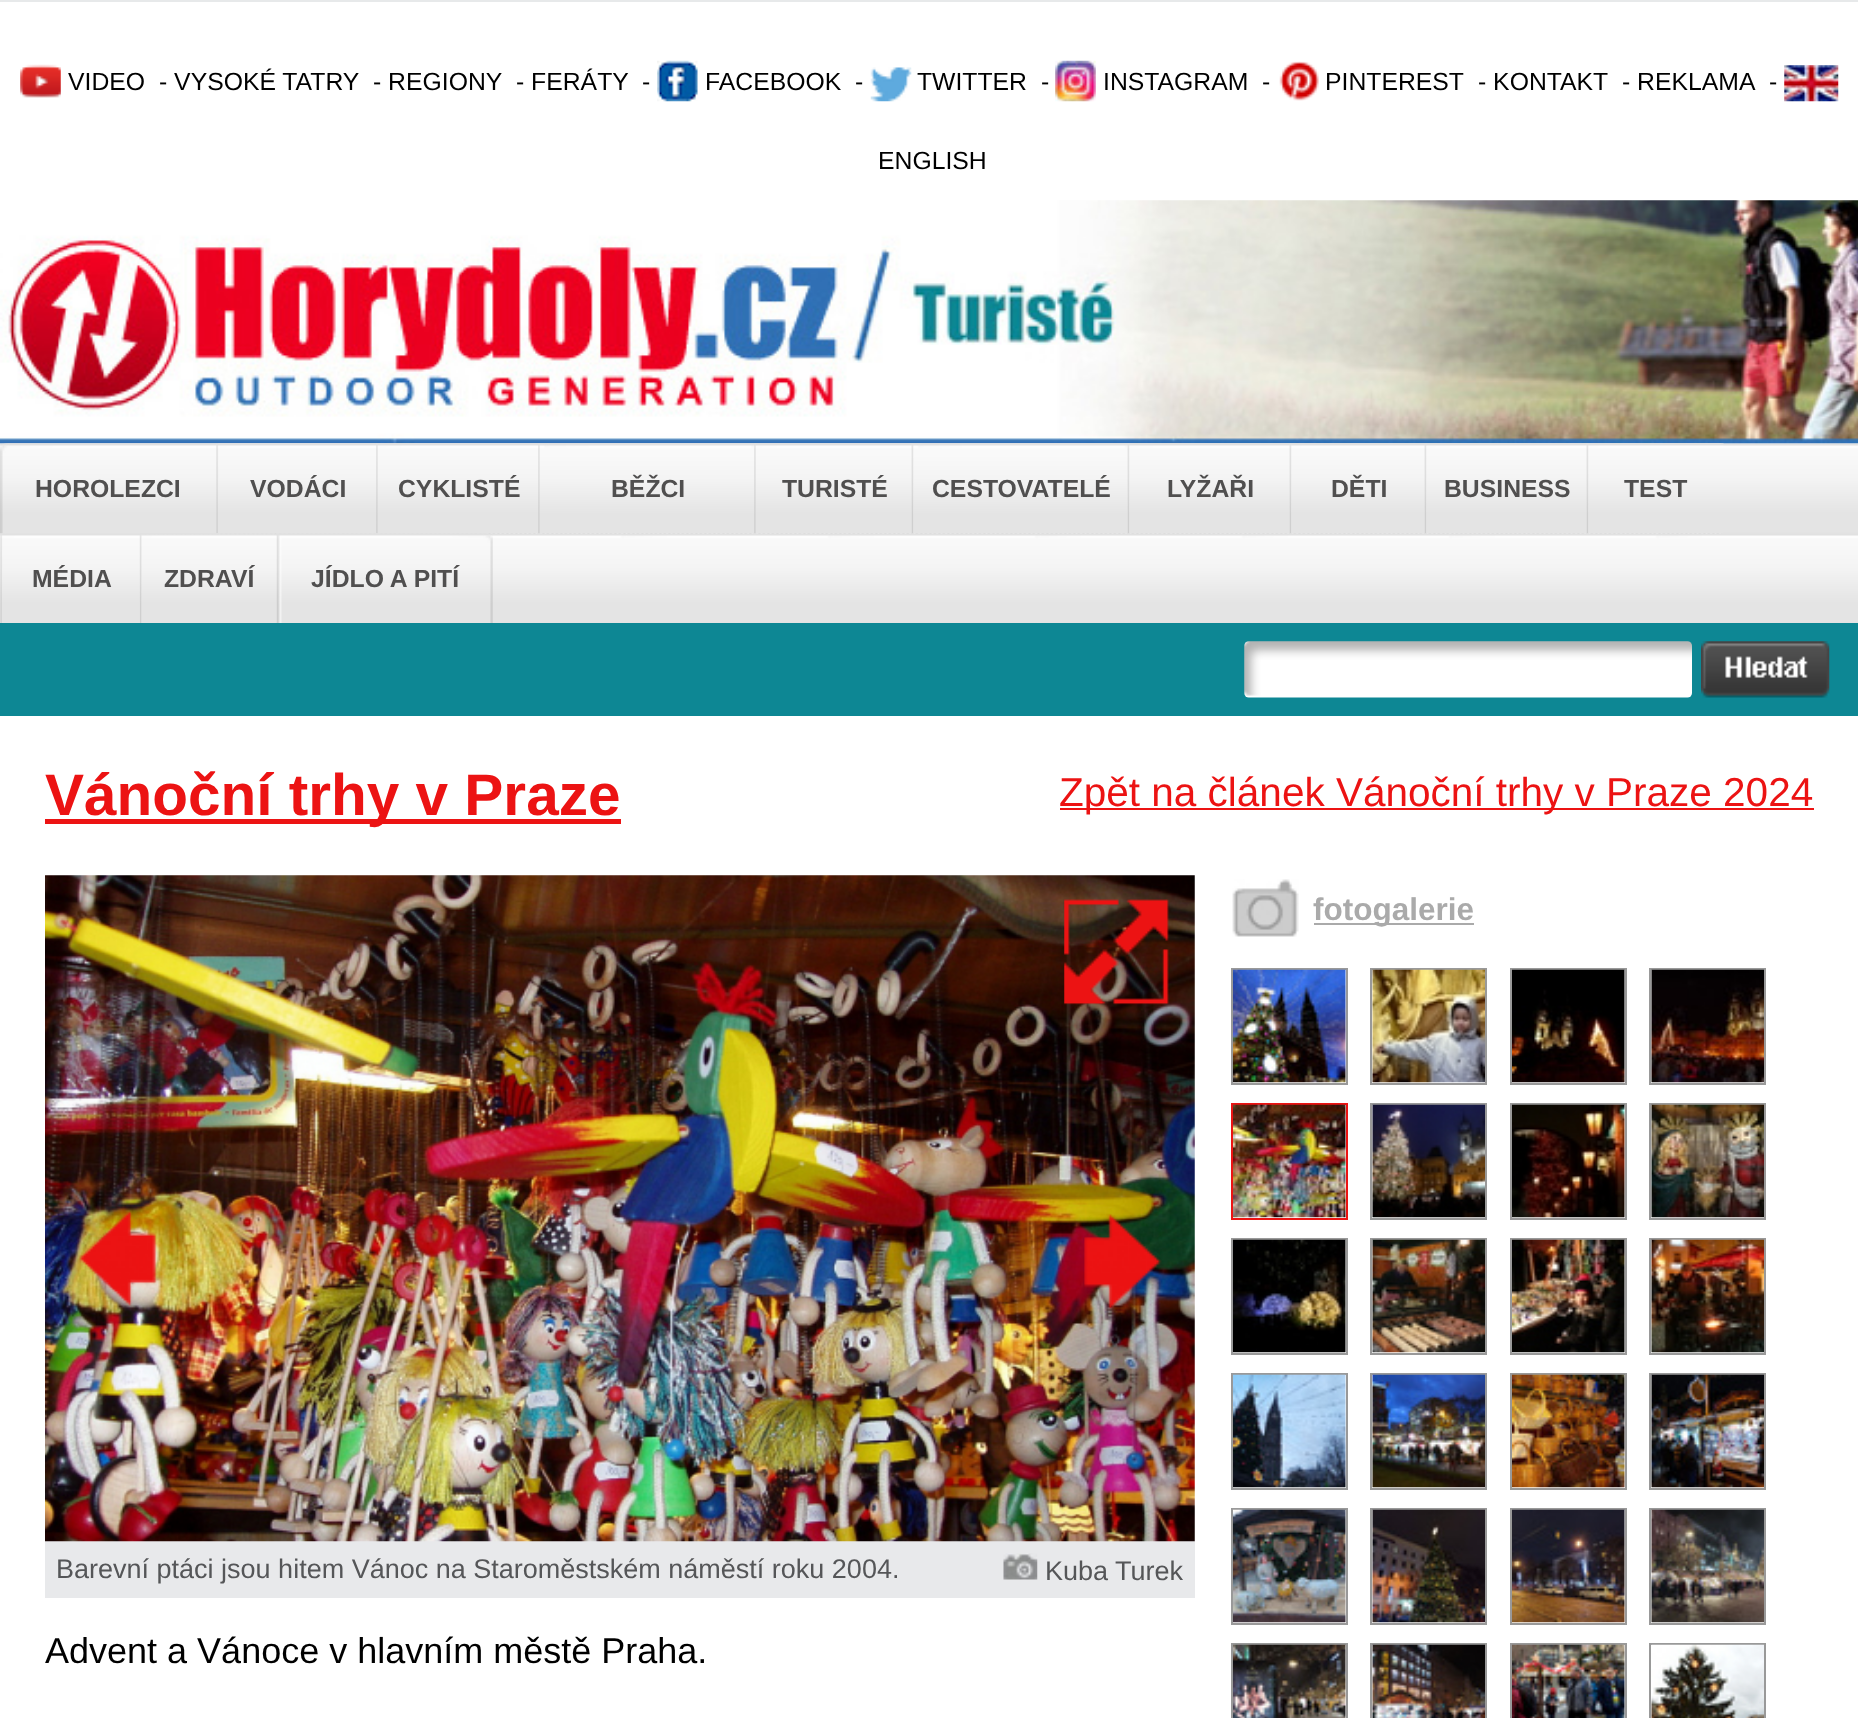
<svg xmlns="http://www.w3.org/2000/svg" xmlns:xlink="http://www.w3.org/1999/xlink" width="1858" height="1718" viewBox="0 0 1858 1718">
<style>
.cls-1{font:24.75px Liberation Sans;fill:#000000}
.cls-2{font:bold 24.75px Liberation Sans;fill:#504f4f}
.cls-3{font:bold 58.5px Liberation Sans;fill:#ec1313}
.cls-4{font:40.5px Liberation Sans;fill:#ec1313}
.cls-5{font:bold 31.5px Liberation Sans;fill:#aaaaaa}
.cls-6{font:27px Liberation Sans;fill:#555658}
.cls-7{font:36px Liberation Sans;fill:#000000}
</style>
<rect width="100%" height="100%" fill="#e7e9ea"/>
<rect fill="#ffffff" x="0" y="2" width="1858" height="1716"/>
<image xlink:href="image0.png" x="20" y="64" width="41" height="34"/>
<image xlink:href="image1.png" x="657" y="60" width="41" height="42"/>
<image xlink:href="image2.png" x="870" y="67" width="42" height="35"/>
<image xlink:href="image3.png" x="1055" y="60" width="41" height="42"/>
<image xlink:href="image4.png" x="1279" y="61" width="40" height="40"/>
<image xlink:href="image5.png" x="1784" y="65" width="55" height="37"/>
<image xlink:href="image7.png" x="0" y="443" width="1858" height="180"/>
<image xlink:href="image6.png" x="0" y="200" width="1858" height="244"/>
<image xlink:href="image8.png" x="0" y="443" width="216" height="91"/>
<image xlink:href="image9.png" x="216" y="443" width="160" height="91"/>
<image xlink:href="image10.png" x="218" y="443" width="160" height="90"/>
<image xlink:href="image11.png" x="376" y="443" width="162" height="91"/>
<image xlink:href="image12.png" x="378" y="443" width="162" height="90"/>
<image xlink:href="image13.png" x="538" y="443" width="216" height="91"/>
<image xlink:href="image14.png" x="540" y="443" width="216" height="90"/>
<image xlink:href="image15.png" x="754" y="443" width="158" height="91"/>
<image xlink:href="image16.png" x="756" y="443" width="158" height="90"/>
<image xlink:href="image17.png" x="911" y="443" width="217" height="91"/>
<image xlink:href="image18.png" x="913" y="443" width="217" height="90"/>
<image xlink:href="image19.png" x="1127" y="443" width="163" height="91"/>
<image xlink:href="image20.png" x="1129" y="443" width="163" height="90"/>
<image xlink:href="image21.png" x="1289" y="443" width="136" height="91"/>
<image xlink:href="image22.png" x="1291" y="443" width="136" height="90"/>
<image xlink:href="image23.png" x="1424" y="443" width="163" height="91"/>
<image xlink:href="image24.png" x="1426" y="443" width="163" height="90"/>
<image xlink:href="image25.png" x="1586" y="443" width="136" height="91"/>
<image xlink:href="image26.png" x="1588" y="443" width="136" height="90"/>
<image xlink:href="image27.png" x="0" y="535" width="3" height="88"/>
<image xlink:href="image28.png" x="2" y="535" width="138" height="88"/>
<image xlink:href="image29.png" x="139" y="533" width="136" height="90"/>
<image xlink:href="image30.png" x="141" y="535" width="135" height="88"/>
<image xlink:href="image31.png" x="276" y="533" width="217" height="90"/>
<rect fill="#0d8794" x="0" y="623" width="1858" height="93"/>
<image xlink:href="image32.png" x="1244" y="641" width="448" height="57"/>
<image xlink:href="image33.png" x="1701" y="641" width="129" height="57"/>
<rect fill="#ec1313" x="45" y="819" width="576" height="5"/>
<rect fill="#ec1313" x="1060" y="808" width="754" height="2"/>
<image xlink:href="image34.png" x="1232" y="879" width="67" height="58"/>
<rect fill="#aaaaaa" x="1314" y="923" width="160" height="2"/>
<rect fill="none" stroke="#999999" stroke-width="2" x="1232" y="969" width="115" height="115"/>
<image xlink:href="image35.png" x="1233" y="969" width="113" height="114"/>
<rect fill="none" stroke="#999999" stroke-width="2" x="1371" y="969" width="115" height="115"/>
<image xlink:href="image36.png" x="1372" y="969" width="113" height="114"/>
<rect fill="none" stroke="#999999" stroke-width="2" x="1511" y="969" width="115" height="115"/>
<image xlink:href="image37.png" x="1512" y="969" width="113" height="114"/>
<rect fill="none" stroke="#999999" stroke-width="2" x="1650" y="969" width="115" height="115"/>
<image xlink:href="image38.png" x="1651" y="969" width="113" height="114"/>
<rect fill="none" stroke="#ec1313" stroke-width="2" x="1232" y="1104" width="115" height="115"/>
<image xlink:href="image39.png" x="1233" y="1104" width="113" height="114"/>
<rect fill="none" stroke="#999999" stroke-width="2" x="1371" y="1104" width="115" height="115"/>
<image xlink:href="image40.png" x="1372" y="1104" width="113" height="114"/>
<rect fill="none" stroke="#999999" stroke-width="2" x="1511" y="1104" width="115" height="115"/>
<image xlink:href="image41.png" x="1512" y="1104" width="113" height="114"/>
<rect fill="none" stroke="#999999" stroke-width="2" x="1650" y="1104" width="115" height="115"/>
<image xlink:href="image42.png" x="1651" y="1104" width="113" height="114"/>
<rect fill="none" stroke="#999999" stroke-width="2" x="1232" y="1239" width="115" height="115"/>
<image xlink:href="image43.png" x="1233" y="1239" width="113" height="114"/>
<rect fill="none" stroke="#999999" stroke-width="2" x="1371" y="1239" width="115" height="115"/>
<image xlink:href="image44.png" x="1372" y="1239" width="113" height="114"/>
<rect fill="none" stroke="#999999" stroke-width="2" x="1511" y="1239" width="115" height="115"/>
<image xlink:href="image45.png" x="1512" y="1239" width="113" height="114"/>
<rect fill="none" stroke="#999999" stroke-width="2" x="1650" y="1239" width="115" height="115"/>
<image xlink:href="image46.png" x="1651" y="1239" width="113" height="114"/>
<rect fill="none" stroke="#999999" stroke-width="2" x="1232" y="1374" width="115" height="115"/>
<image xlink:href="image47.png" x="1233" y="1374" width="113" height="114"/>
<rect fill="none" stroke="#999999" stroke-width="2" x="1371" y="1374" width="115" height="115"/>
<image xlink:href="image48.png" x="1372" y="1374" width="113" height="114"/>
<rect fill="none" stroke="#999999" stroke-width="2" x="1511" y="1374" width="115" height="115"/>
<image xlink:href="image49.png" x="1512" y="1374" width="113" height="114"/>
<rect fill="none" stroke="#999999" stroke-width="2" x="1650" y="1374" width="115" height="115"/>
<image xlink:href="image50.png" x="1651" y="1374" width="113" height="114"/>
<rect fill="none" stroke="#999999" stroke-width="2" x="1232" y="1509" width="115" height="115"/>
<image xlink:href="image51.png" x="1233" y="1509" width="113" height="114"/>
<rect fill="none" stroke="#999999" stroke-width="2" x="1371" y="1509" width="115" height="115"/>
<image xlink:href="image52.png" x="1372" y="1509" width="113" height="114"/>
<rect fill="none" stroke="#999999" stroke-width="2" x="1511" y="1509" width="115" height="115"/>
<image xlink:href="image53.png" x="1512" y="1509" width="113" height="114"/>
<rect fill="none" stroke="#999999" stroke-width="2" x="1650" y="1509" width="115" height="115"/>
<image xlink:href="image54.png" x="1651" y="1509" width="113" height="114"/>
<rect fill="none" stroke="#999999" stroke-width="2" x="1232" y="1644" width="115" height="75"/>
<image xlink:href="image55.png" x="1233" y="1644" width="113" height="74"/>
<rect fill="none" stroke="#999999" stroke-width="2" x="1371" y="1644" width="115" height="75"/>
<image xlink:href="image56.png" x="1372" y="1644" width="113" height="74"/>
<rect fill="none" stroke="#999999" stroke-width="2" x="1511" y="1644" width="115" height="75"/>
<image xlink:href="image57.png" x="1512" y="1644" width="113" height="74"/>
<rect fill="none" stroke="#999999" stroke-width="2" x="1650" y="1644" width="115" height="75"/>
<image xlink:href="image58.png" x="1651" y="1644" width="113" height="74"/>
<rect fill="#e8e9eb" x="45" y="1541" width="1150" height="57"/>
<image xlink:href="image59.png" x="45" y="875" width="1150" height="667"/>
<image xlink:href="image60.png" x="1064" y="899" width="106" height="106"/>
<image xlink:href="image61.png" x="78" y="1210" width="79" height="96"/>
<image xlink:href="image62.png" x="1084" y="1214" width="78" height="96"/>
<image xlink:href="image63.png" x="1003" y="1553" width="35" height="27"/>
<text class="cls-1" x="68" y="90">VIDEO</text>
<text class="cls-1" x="159" y="90">- VYSOKÉ TATRY</text>
<text class="cls-1" x="373" y="90">- REGIONY</text>
<text class="cls-1" x="516" y="90">- FERÁTY</text>
<text class="cls-1" x="642" y="90">-</text>
<text class="cls-1" x="705" y="90">FACEBOOK</text>
<text class="cls-1" x="855" y="90">-</text>
<text class="cls-1" x="917" y="90">TWITTER</text>
<text class="cls-1" x="1041" y="90">-</text>
<text class="cls-1" x="1103" y="90">INSTAGRAM</text>
<text class="cls-1" x="1262" y="90">-</text>
<text class="cls-1" x="1325" y="90">PINTEREST</text>
<text class="cls-1" x="1478" y="90">- KONTAKT</text>
<text class="cls-1" x="1622" y="90">- REKLAMA</text>
<text class="cls-1" x="1769" y="90">-</text>
<text class="cls-1" x="878" y="169">ENGLISH</text>
<text class="cls-2" x="35" y="497">HOROLEZCI</text>
<text class="cls-2" x="250" y="497">VODÁCI</text>
<text class="cls-2" x="398" y="497">CYKLISTÉ</text>
<text class="cls-2" x="611" y="497">BĚŽCI</text>
<text class="cls-2" x="782" y="497">TURISTÉ</text>
<text class="cls-2" x="932" y="497">CESTOVATELÉ</text>
<text class="cls-2" x="1167" y="497">LYŽAŘI</text>
<text class="cls-2" x="1331" y="497">DĚTI</text>
<text class="cls-2" x="1444" y="497">BUSINESS</text>
<text class="cls-2" x="1624" y="497">TEST</text>
<text class="cls-2" x="32" y="587">MÉDIA</text>
<text class="cls-2" x="164" y="587">ZDRAVÍ</text>
<text class="cls-2" x="311" y="587">JÍDLO A PITÍ</text>
<text class="cls-3" x="45" y="815">Vánoční trhy v Praze</text>
<text class="cls-4" x="1059" y="806">Zpět na článek Vánoční trhy v Praze 2024</text>
<text class="cls-5" x="1313" y="920">fotogalerie</text>
<text class="cls-6" x="56" y="1578">Barevní ptáci jsou hitem Vánoc na Staroměstském náměstí roku 2004.</text>
<text class="cls-6" x="1045" y="1580">Kuba Turek</text>
<text class="cls-7" x="45" y="1663">Advent a Vánoce v hlavním městě Praha.</text>
</svg>
